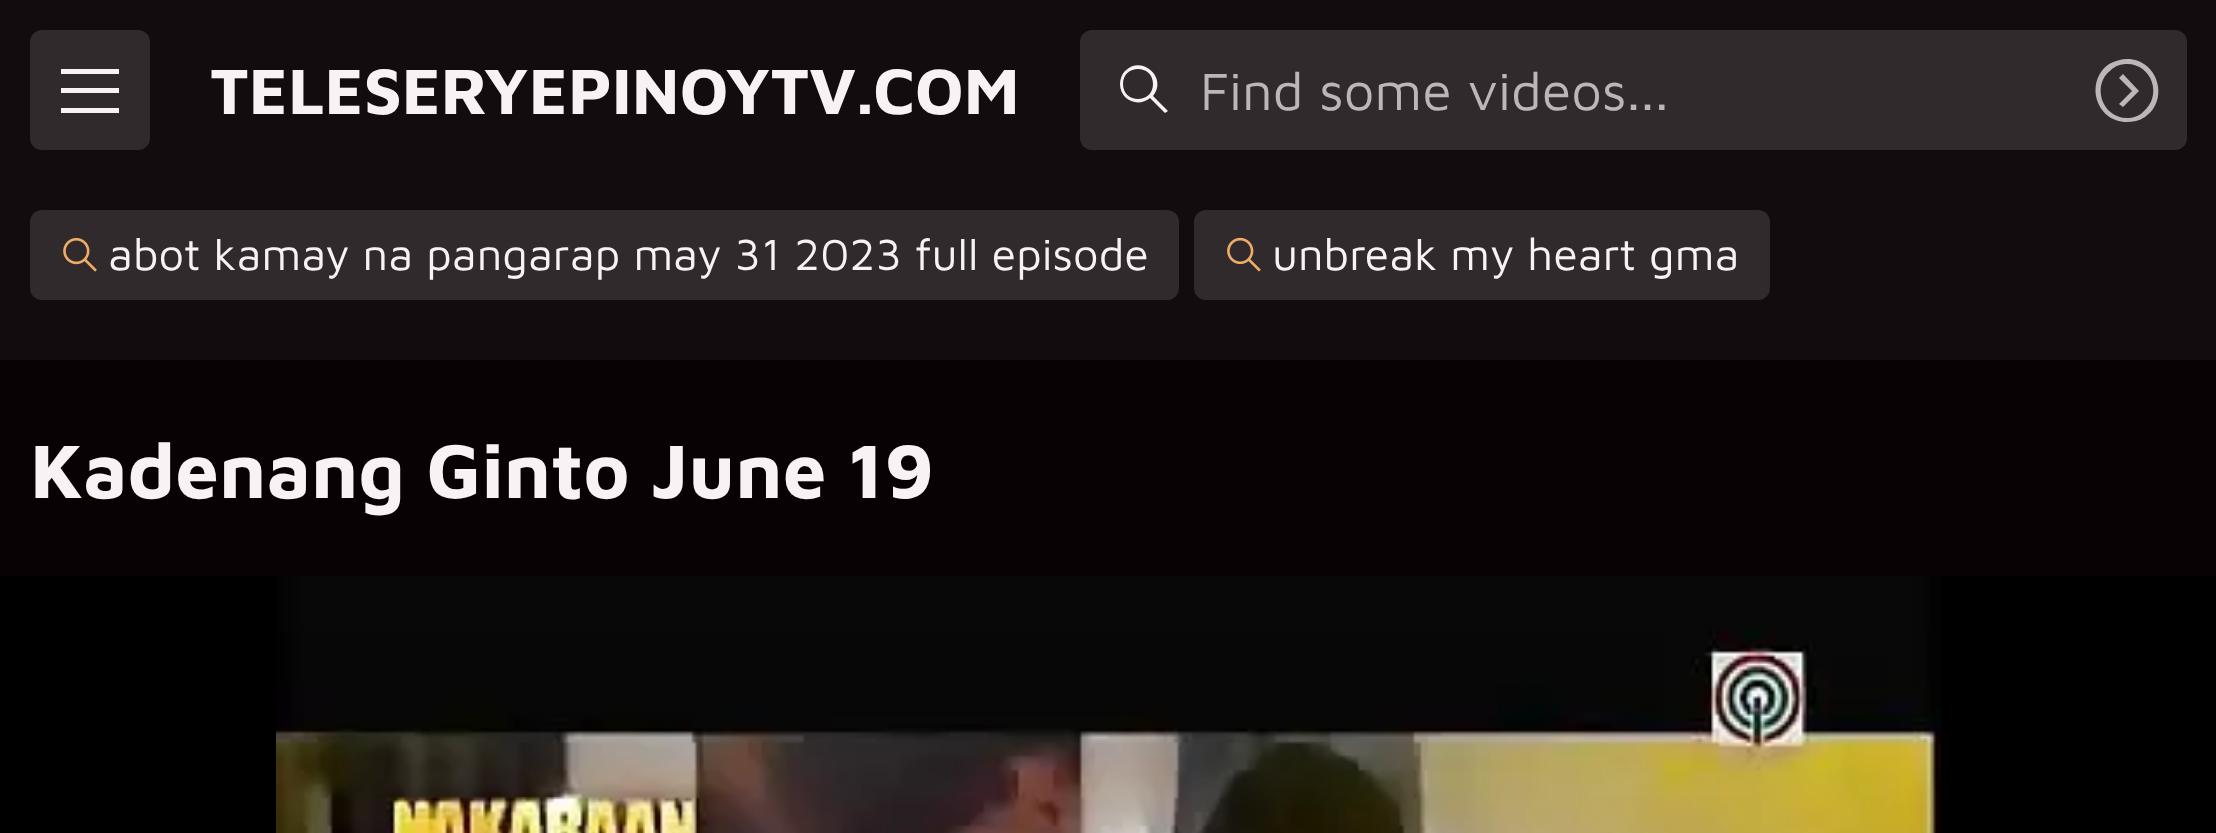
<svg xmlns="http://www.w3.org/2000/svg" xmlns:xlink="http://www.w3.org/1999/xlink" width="2216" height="833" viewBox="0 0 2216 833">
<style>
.cls-1{font:bold 66px Maven Pro;fill:#f8f2f4}
.cls-2{font:54px Maven Pro;fill:#bcb6b8}
.cls-3{font:45px Maven Pro;fill:#f8f2f4}
.cls-4{font:bold 78px Maven Pro;fill:#f8f2f4}
</style>
<rect width="100%" height="100%" fill="#120c0e"/>
<rect fill="#302a2c" x="30" y="30" width="120" height="120" rx="12"/>
<path fill="#f8f2f4" d="M61 69V74H119V69ZM61 88V93H119V88ZM61 108V113H119V108Z"/>
<rect fill="#302a2c" x="1080" y="30" width="1107" height="120" rx="12"/>
<path fill="#f8f2f4" d="M1120 84C1120 100 1138 108 1150 98L1165 113L1168 111L1153 96C1168 78 1142 54 1125 71C1122 74 1120 79 1120 84ZM1123 84C1123 64 1153 64 1153 84C1153 104 1123 104 1123 84Z"/>
<path fill="#bcb6b8" d="M2127 59C2121 59 2115 61 2109 64C2084 82 2096 122 2127 122C2133 122 2139 121 2145 117C2170 100 2158 59 2127 59ZM2127 64C2152 64 2163 96 2143 112C2139 116 2133 118 2127 118C2102 118 2091 85 2111 70C2115 66 2121 64 2127 64ZM2123 74L2119 78L2132 91L2119 104L2123 107L2139 91Z"/>
<rect fill="#302a2c" x="30" y="210" width="1149" height="90" rx="12"/>
<image xlink:href="image0.png" x="63" y="237" width="34" height="35"/>
<rect fill="#302a2c" x="1194" y="210" width="576" height="90" rx="12"/>
<image xlink:href="image1.png" x="1227" y="237" width="34" height="35"/>
<rect fill="#080204" x="0" y="360" width="2216" height="216"/>
<rect fill="#000000" x="0" y="576" width="2216" height="257"/>
<image xlink:href="image2.png" x="276" y="576" width="1665" height="257"/>
<text class="cls-1" x="210" y="114">TELESERYEPINOYTV.COM</text>
<text class="cls-2" x="1200" y="110">Find some videos...</text>
<text class="cls-3" x="108" y="270">abot kamay na pangarap may 31 2023 full episode</text>
<text class="cls-3" x="1272" y="270">unbreak my heart gma</text>
<text class="cls-4" x="30" y="498">Kadenang Ginto June 19</text>
</svg>
